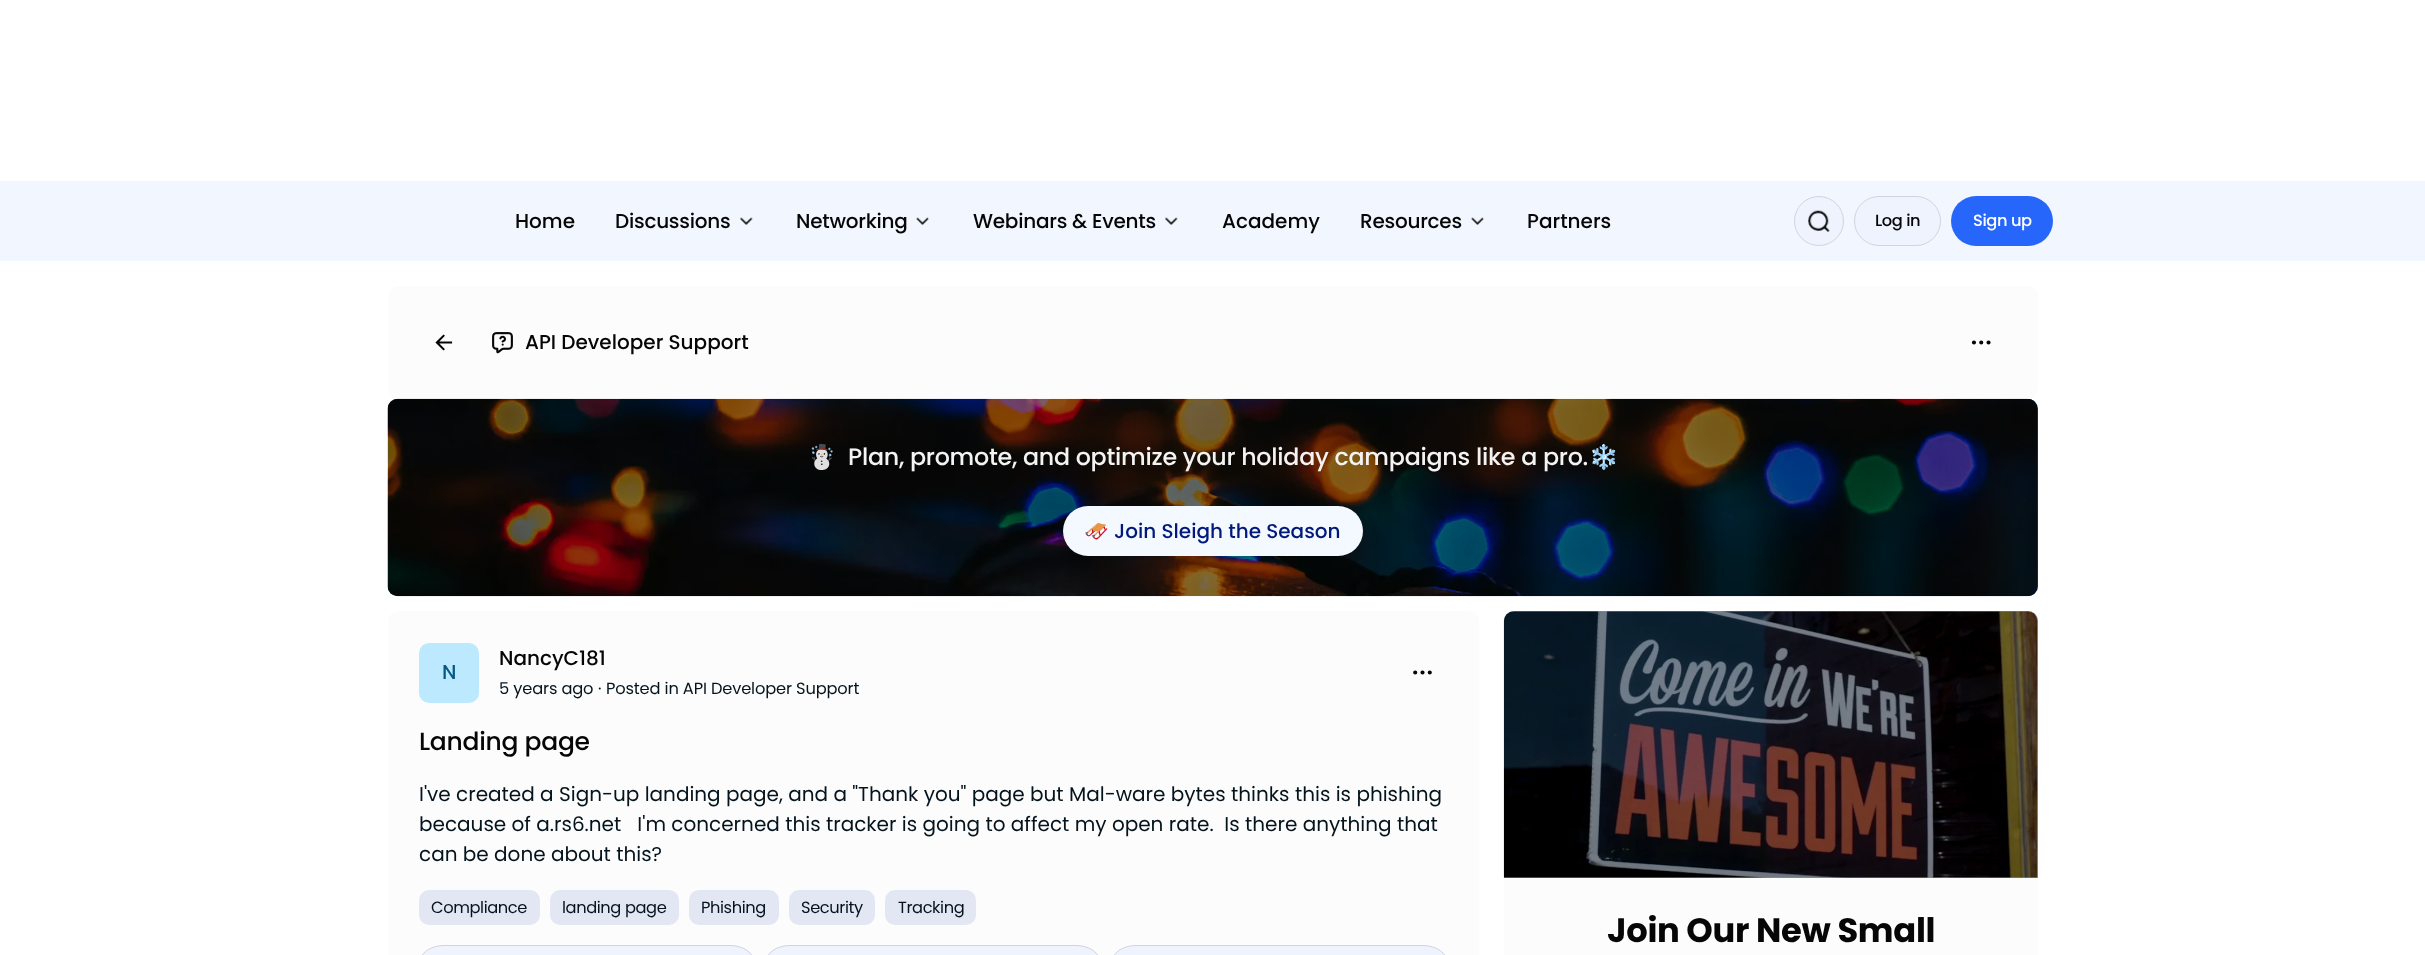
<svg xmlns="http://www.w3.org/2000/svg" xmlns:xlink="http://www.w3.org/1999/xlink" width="2425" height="955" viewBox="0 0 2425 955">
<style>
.cls-1{font:500 20px Poppins;fill:#060607}
.cls-2{font:500 20px Poppins;letter-spacing:-0.25px;fill:#060607}
.cls-3{font:500 16.25px Poppins;letter-spacing:-0.4px;fill:#060607}
.cls-4{font:500 16.25px Poppins;letter-spacing:-0.4px;fill:#ffffff}
.cls-5{font:23.75px Noto Color Emoji;letter-spacing:-0.25px;fill:#f3f3f3}
.cls-6{font:500 23.75px Poppins;letter-spacing:-0.25px;fill:#f3f3f3}
.cls-7{font:20px Noto Color Emoji;fill:#00197a}
.cls-8{font:500 20px Poppins;fill:#00197a}
.cls-9{font:500 20px Poppins;letter-spacing:-0.25px;fill:#065986}
.cls-10{font:16.25px Poppins;letter-spacing:-0.15px;fill:#05141c}
.cls-11{font:500 25px Poppins;letter-spacing:-0.25px;fill:#060607}
.cls-12{font:20px Poppins;fill:#05141c}
.cls-13{font:16.25px Poppins;letter-spacing:-0.4px;fill:#05141c}
.cls-14{font:bold 33.75px Poppins;letter-spacing:-0.3px;fill:#060607}
</style>
<rect width="100%" height="100%" fill="#ffffff"/>
<rect fill="#f2f6fe" x="0" y="181" width="2425" height="80"/>
<image xlink:href="image0.png" x="740" y="217" width="13" height="8"/>
<image xlink:href="image1.png" x="916" y="217" width="13" height="8"/>
<image xlink:href="image0.png" x="1165" y="217" width="13" height="8"/>
<image xlink:href="image1.png" x="1471" y="217" width="13" height="8"/>
<circle fill="#eef3fe" stroke="#cfd4e0" cx="1819" cy="221" r="24.5"/>
<image xlink:href="image2.png" x="1808" y="210" width="22" height="22"/>
<rect fill="#eef3fe" stroke="#cfd4e0" x="1854.5" y="196.5" width="86" height="49" rx="24.5"/>
<rect fill="#2766fa" x="1951" y="196" width="102" height="50" rx="25"/>
<rect fill="#fcfcfd" x="388" y="286" width="1650" height="113" rx="10"/>
<image xlink:href="image3.png" x="435" y="334" width="18" height="17"/>
<image xlink:href="image4.png" x="492" y="332" width="21" height="22"/>
<image xlink:href="image5.png" x="1971" y="340" width="20" height="5"/>
<rect fill="#1856ed" x="388" y="399" width="1650" height="197" rx="10"/>
<image xlink:href="image6.png" x="387" y="398" width="1651" height="199"/>
<rect fill="#000000" fill-opacity="0.45" x="388" y="399" width="1650" height="197" rx="10"/>
<rect fill="#f4f8ff" x="1063" y="506" width="300" height="50" rx="25"/>
<rect fill="#fcfcfd" x="388" y="611" width="1091" height="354" rx="10"/>
<rect fill="#bde9fe" x="419" y="643" width="60" height="60" rx="10"/>
<image xlink:href="image7.png" x="1413" y="670" width="19" height="5"/>
<rect fill="#e2e7f3" x="419" y="890" width="121" height="35" rx="10"/>
<rect fill="#e2e7f3" x="550" y="890" width="129" height="35" rx="10"/>
<rect fill="#e2e7f3" x="689" y="890" width="90" height="35" rx="10"/>
<rect fill="#e2e7f3" x="789" y="890" width="86" height="35" rx="10"/>
<rect fill="#e2e7f3" x="885" y="890" width="91" height="35" rx="10"/>
<rect fill="#eef3fe" stroke="#cfd4e0" x="419.5" y="945.5" width="335" height="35" rx="24.5"/>
<rect fill="#eef3fe" stroke="#cfd4e0" x="765.5" y="945.5" width="335" height="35" rx="24.5"/>
<rect fill="#eef3fe" stroke="#cfd4e0" x="1111.5" y="945.5" width="336" height="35" rx="24.5"/>
<rect fill="#fcfcfd" x="1504" y="611" width="534" height="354" rx="10"/>
<image xlink:href="image8.png" x="1503" y="611" width="535" height="267"/>
<path fill="#000000" fill-opacity="0.4" d="M1514 611H2028C2033.5 611 2038 615.5 2038 621V878H1504V621C1504 615.5 1508.5 611 1514 611Z"/>
<text class="cls-1" x="515" y="228">Home</text>
<text class="cls-2" x="615" y="228">Discussions</text>
<text class="cls-2" x="796" y="228">Networking</text>
<text class="cls-2" x="973" y="228">Webinars &amp; Events</text>
<text class="cls-1" x="1222" y="228">Academy</text>
<text class="cls-2" x="1360" y="228">Resources</text>
<text class="cls-1" x="1527" y="228">Partners</text>
<text class="cls-3" x="1875" y="226">Log in</text>
<text class="cls-4" x="1973" y="226">Sign up</text>
<text class="cls-1" x="525" y="349">API Developer Support</text>
<text class="cls-5" x="807" y="465">☃️</text>
<text class="cls-6" x="848" y="465">Plan, promote, and optimize your holiday campaigns like a pro.</text>
<text class="cls-5" x="1589" y="465">❄️</text>
<text class="cls-7" x="1084" y="538">🛷</text>
<text class="cls-8" x="1114" y="538">Join Sleigh the Season</text>
<text class="cls-9" x="442" y="679">N</text>
<text class="cls-1" x="499" y="665">NancyC181</text>
<text class="cls-10" x="499" y="694">5 years ago</text>
<text class="cls-10" x="598" y="694">·</text>
<text class="cls-10" x="606" y="694">Posted in API Developer Support</text>
<text class="cls-11" x="419" y="750">Landing page</text>
<text class="cls-12" xml:space="preserve"><tspan x="419" y="801">I've created a Sign-up landing page, and a "Thank you" page but Mal-ware bytes thinks this is phishing</tspan><tspan x="419" y="831">because of a.rs6.net   I'm concerned this tracker is going to affect my open rate.  Is there anything that</tspan><tspan x="419" y="861">can be done about this?</tspan></text>
<text class="cls-13" x="431" y="913">Compliance</text>
<text class="cls-13" x="562" y="913">landing page</text>
<text class="cls-13" x="701" y="913">Phishing</text>
<text class="cls-13" x="801" y="913">Security</text>
<text class="cls-13" x="898" y="913">Tracking</text>
<text class="cls-14" x="1607" y="942">Join Our New Small</text>
</svg>
